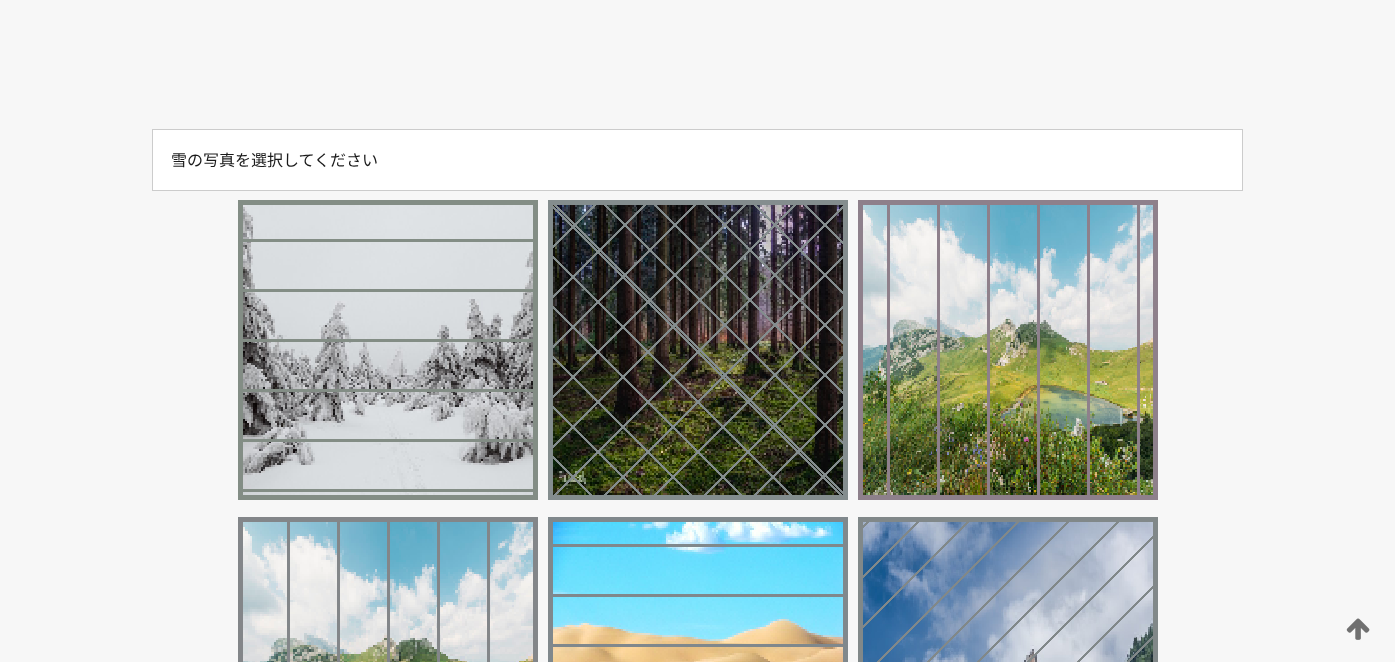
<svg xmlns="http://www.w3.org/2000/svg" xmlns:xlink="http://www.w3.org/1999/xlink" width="1395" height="662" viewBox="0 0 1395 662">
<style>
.cls-1{font:100 16px Noto Sans SC;fill:#1a1a1a}
</style>
<rect width="100%" height="100%" fill="#f7f7f7"/>
<rect fill="#ffffff" stroke="#cccccc" x="152.5" y="129.5" width="1090" height="61"/>
<image xlink:href="image0.png" x="238" y="200" width="300" height="300"/>
<image xlink:href="image1.png" x="548" y="200" width="300" height="300"/>
<image xlink:href="image2.png" x="858" y="200" width="300" height="300"/>
<image xlink:href="image3.png" x="238" y="517" width="300" height="145"/>
<image xlink:href="image4.png" x="548" y="517" width="300" height="145"/>
<image xlink:href="image5.png" x="858" y="517" width="300" height="145"/>
<image xlink:href="image6.png" x="1346" y="618" width="24" height="22"/>
<text class="cls-1" x="171" y="166">雪の写真を選択してください</text>
</svg>
